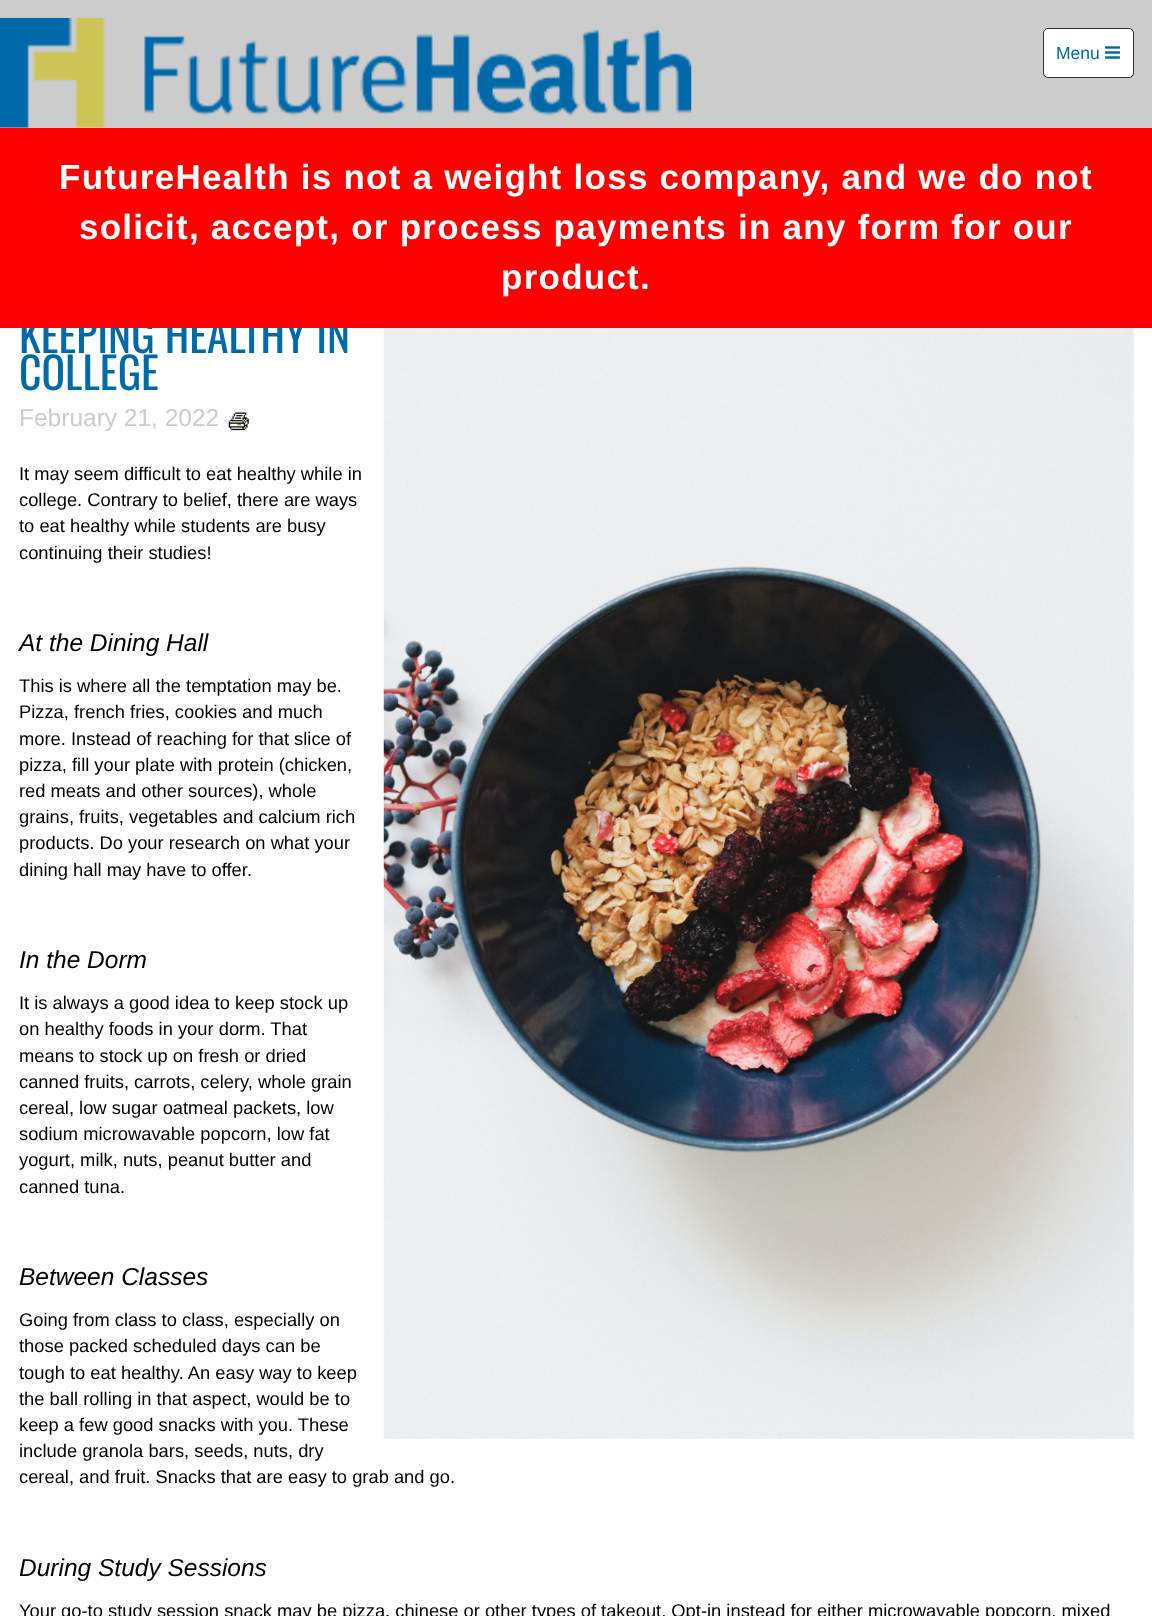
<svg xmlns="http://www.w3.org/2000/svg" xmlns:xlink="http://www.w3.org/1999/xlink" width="1152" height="1616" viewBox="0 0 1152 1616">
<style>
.cls-1{font:17.5px Liberation Sans;fill:#0069aa}
.cls-2{font:43.75px Oswald;fill:#0069aa}
.cls-3{font:bold 35px Liberation Sans;letter-spacing:1.25px;fill:#ffffff}
.cls-4{font:24.5px Liberation Sans;fill:#cccccc}
.cls-5{font:18.33px Liberation Sans;fill:#000000}
.cls-6{font:italic 24.5px Liberation Sans;fill:#000000}
</style>
<rect width="100%" height="100%" fill="#ffffff"/>
<rect fill="#cccccc" x="0" y="0" width="1152" height="128"/>
<image xlink:href="image0.png" x="0" y="18" width="692" height="110"/>
<rect fill="#ffffff" stroke="#333333" x="1043.5" y="28.5" width="90" height="49" rx="4.5"/>
<image xlink:href="image1.png" x="1105" y="46" width="15" height="13"/>
<image xlink:href="image2.png" x="383" y="328" width="751" height="1111"/>
<image xlink:href="image3.png" x="228" y="412" width="21" height="19"/>
<text class="cls-1" x="1056" y="59">Menu</text>
<text class="cls-2" x="19" y="353">KEEPING HEALTHY IN</text>
<rect fill="#ff0000" x="0" y="128" width="1152" height="200"/>
<text class="cls-3" x="501" y="289">product.</text>
<text class="cls-3" x="79" y="239">solicit, accept, or process payments in any form for our</text>
<text class="cls-3" x="59" y="189">FutureHealth is not a weight loss company, and we do not</text>
<text class="cls-2" x="19" y="390">COLLEGE</text>
<text class="cls-4" x="19" y="426">February 21, 2022</text>
<text class="cls-5"><tspan x="19" y="480">It may seem difficult to eat healthy while in</tspan><tspan x="19" y="506">college. Contrary to belief, there are ways</tspan><tspan x="19" y="532">to eat healthy while students are busy</tspan><tspan x="19" y="559">continuing their studies!</tspan></text>
<text class="cls-6" x="19" y="651">At the Dining Hall</text>
<text class="cls-5"><tspan x="19" y="692">This is where all the temptation may be.</tspan><tspan x="19" y="718">Pizza, french fries, cookies and much</tspan><tspan x="19" y="745">more. Instead of reaching for that slice of</tspan><tspan x="19" y="771">pizza, fill your plate with protein (chicken,</tspan><tspan x="19" y="797">red meats and other sources), whole</tspan><tspan x="19" y="823">grains, fruits, vegetables and calcium rich</tspan><tspan x="19" y="849">products. Do your research on what your</tspan><tspan x="19" y="876">dining hall may have to offer.</tspan></text>
<text class="cls-6" x="19" y="968">In the Dorm</text>
<text class="cls-5"><tspan x="19" y="1009">It is always a good idea to keep stock up</tspan><tspan x="19" y="1035">on healthy foods in your dorm. That</tspan><tspan x="19" y="1062">means to stock up on fresh or dried</tspan><tspan x="19" y="1088">canned fruits, carrots, celery, whole grain</tspan><tspan x="19" y="1114">cereal, low sugar oatmeal packets, low</tspan><tspan x="19" y="1140">sodium microwavable popcorn, low fat</tspan><tspan x="19" y="1166">yogurt, milk, nuts, peanut butter and</tspan><tspan x="19" y="1193">canned tuna.</tspan></text>
<text class="cls-6" x="19" y="1285">Between Classes</text>
<text class="cls-5"><tspan x="19" y="1326">Going from class to class, especially on</tspan><tspan x="19" y="1352">those packed scheduled days can be</tspan><tspan x="19" y="1379">tough to eat healthy. An easy way to keep</tspan><tspan x="19" y="1405">the ball rolling in that aspect, would be to</tspan><tspan x="19" y="1431">keep a few good snacks with you. These</tspan><tspan x="19" y="1457">include granola bars, seeds, nuts, dry</tspan><tspan x="19" y="1483">cereal, and fruit. Snacks that are easy to grab and go.</tspan></text>
<text class="cls-6" x="19" y="1576">During Study Sessions</text>
<text class="cls-5" x="19" y="1617">Your go-to study session snack may be pizza, chinese or other types of takeout. Opt-in instead for either microwavable popcorn, mixed</text>
</svg>
